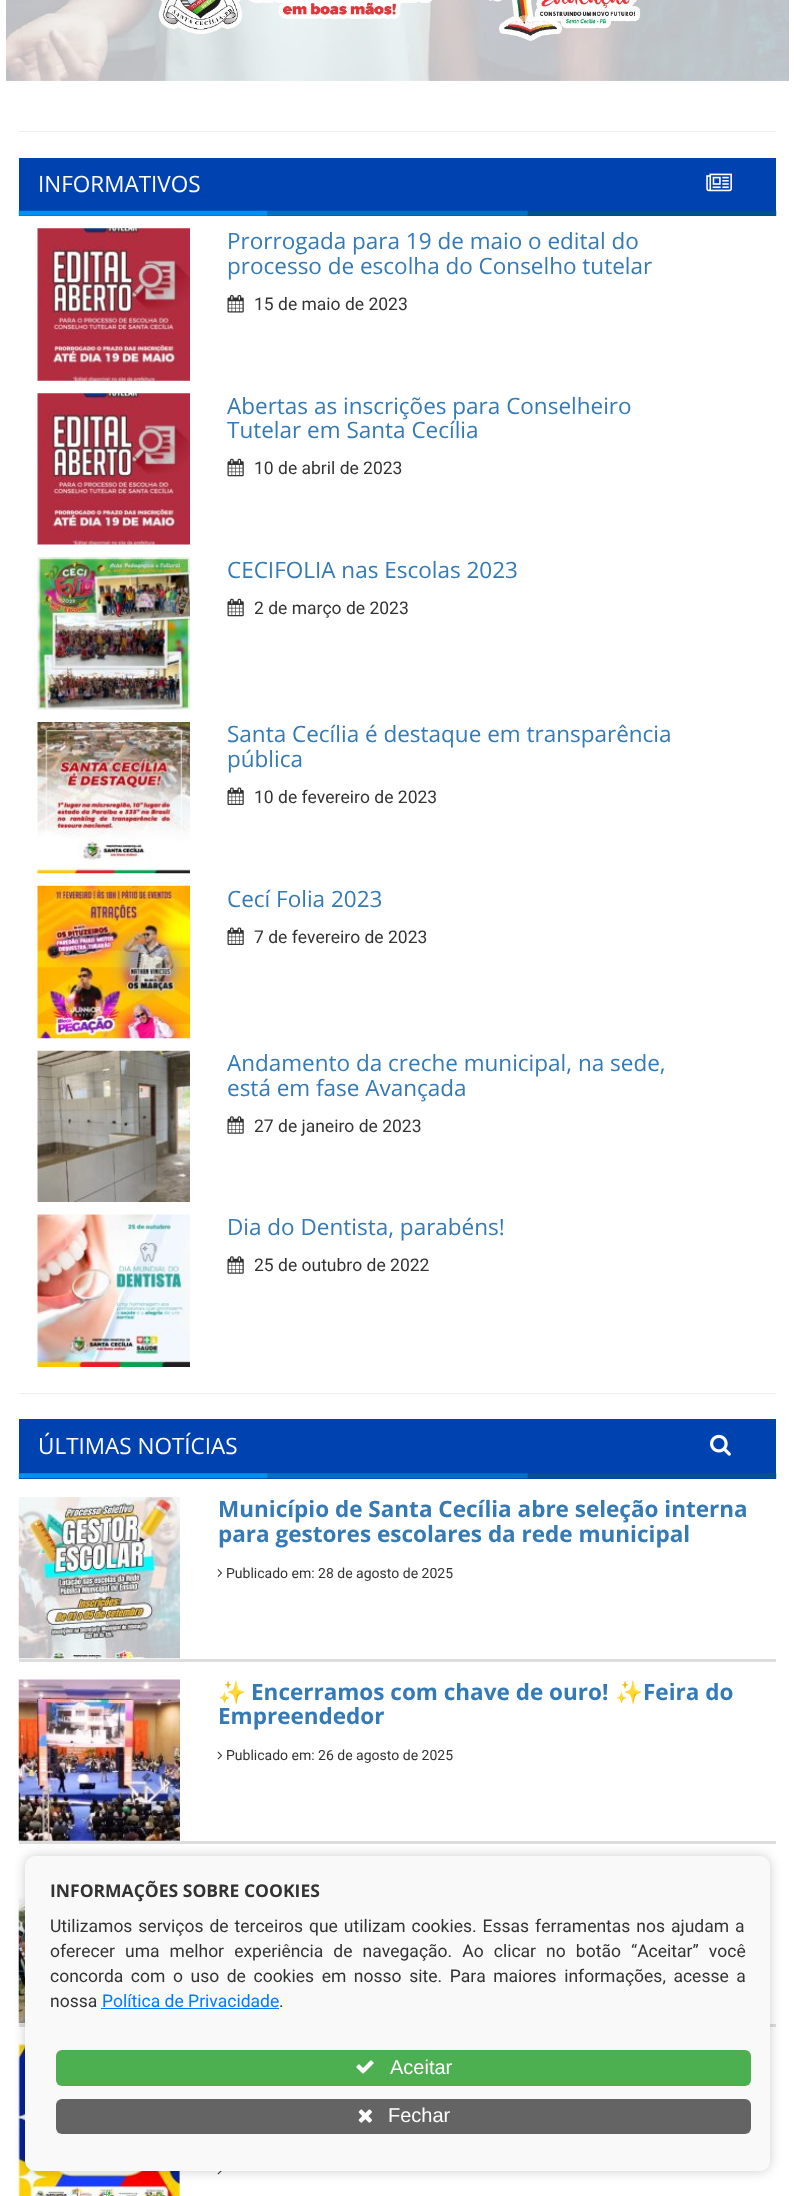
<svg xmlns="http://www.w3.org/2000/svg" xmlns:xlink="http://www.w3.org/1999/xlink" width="794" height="2196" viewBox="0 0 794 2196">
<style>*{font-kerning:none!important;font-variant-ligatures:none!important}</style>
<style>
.cls-1{font:22.5px Open Sans;fill:#ffffff}
.cls-2{font:22.5px Open Sans;fill:#337ab7}
.cls-3{font:17.5px Roboto;fill:#333333}
.cls-4{font:bold 22.5px Open Sans;fill:#337ab7}
.cls-5{font:14px Roboto;fill:#333333}
.cls-6{font:bold 22.5px Noto Color Emoji;fill:#337ab7}
.cls-7{font:bold 17.5px Open Sans;fill:#333333}
.cls-8{font:17.5px Roboto;fill:#007bff}
.cls-9{font:20px Liberation Sans;fill:#ffffff}
</style>
<rect width="100%" height="100%" fill="#ffffff"/>
<image xlink:href="image0.png" x="6" y="0" width="783" height="81"/>
<rect fill="#eeeeee" x="19" y="131" width="757" height="1"/>
<rect fill="#0042af" x="19" y="158" width="757" height="58"/>
<image xlink:href="image1.png" x="18" y="210" width="759" height="6"/>
<image xlink:href="image2.png" x="706" y="173" width="26" height="19"/>
<image xlink:href="image3.png" x="37" y="228" width="153" height="153"/>
<image xlink:href="image4.png" x="227" y="295" width="17" height="18"/>
<image xlink:href="image5.png" x="37" y="393" width="153" height="152"/>
<image xlink:href="image6.png" x="227" y="458" width="17" height="19"/>
<image xlink:href="image7.png" x="37" y="557" width="153" height="153"/>
<image xlink:href="image6.png" x="227" y="598" width="17" height="19"/>
<image xlink:href="image8.png" x="37" y="722" width="153" height="152"/>
<image xlink:href="image9.png" x="227" y="787" width="17" height="18"/>
<image xlink:href="image10.png" x="37" y="885" width="153" height="154"/>
<image xlink:href="image9.png" x="227" y="927" width="17" height="18"/>
<image xlink:href="image11.png" x="37" y="1050" width="153" height="152"/>
<image xlink:href="image12.png" x="227" y="1116" width="17" height="18"/>
<image xlink:href="image13.png" x="37" y="1214" width="153" height="153"/>
<image xlink:href="image12.png" x="227" y="1256" width="17" height="18"/>
<rect fill="#eeeeee" x="19" y="1393" width="757" height="1"/>
<rect fill="#0042af" x="19" y="1419" width="757" height="60"/>
<image xlink:href="image14.png" x="18" y="1473" width="759" height="6"/>
<image xlink:href="image15.png" x="710" y="1434" width="21" height="22"/>
<rect fill="#dddddd" x="19" y="1659" width="757" height="3"/>
<image xlink:href="image16.png" x="18" y="1497" width="162" height="162"/>
<image xlink:href="image17.png" x="217" y="1569" width="6" height="8"/>
<rect fill="#dddddd" x="19" y="1841" width="757" height="3"/>
<image xlink:href="image18.png" x="18" y="1679" width="162" height="162"/>
<image xlink:href="image19.png" x="217" y="1751" width="6" height="9"/>
<rect fill="#dddddd" x="19" y="2024" width="757" height="3"/>
<image xlink:href="image20.png" x="18" y="1871" width="7" height="153"/>
<image xlink:href="image21.png" x="18" y="2044" width="162" height="152"/>
<image xlink:href="image22.png" x="217" y="2171" width="5" height="4"/>
<rect fill="#000000" fill-opacity="0.2" filter="blur(6px)" x="25" y="1856" width="745" height="315" rx="10"/>
<rect fill="#f9f9f9" x="25" y="1856" width="745" height="315" rx="10"/>
<rect fill="#007bff" x="101" y="2008" width="178" height="1"/>
<rect fill="#4caf50" x="56" y="2050" width="695" height="36" rx="6"/>
<image xlink:href="image23.png" x="356" y="2060" width="18" height="14"/>
<rect fill="#646464" x="56" y="2099" width="695" height="35" rx="6"/>
<image xlink:href="image24.png" x="358" y="2109" width="14" height="14"/>
<text class="cls-1" x="38" y="192">INFORMATIVOS</text>
<text class="cls-2"><tspan x="227" y="249">Prorrogada para 19 de maio o edital do</tspan><tspan x="227" y="274">processo de escolha do Conselho tutelar</tspan></text>
<text class="cls-3" x="254" y="310">15 de maio de 2023</text>
<text class="cls-2"><tspan x="227" y="414">Abertas as inscrições para Conselheiro</tspan><tspan x="227" y="438">Tutelar em Santa Cecília</tspan></text>
<text class="cls-3" x="254" y="474">10 de abril de 2023</text>
<text class="cls-2" x="227" y="578">CECIFOLIA nas Escolas 2023</text>
<text class="cls-3" x="254" y="614">2 de março de 2023</text>
<text class="cls-2"><tspan x="227" y="742">Santa Cecília é destaque em transparência</tspan><tspan x="227" y="767">pública</tspan></text>
<text class="cls-3" x="254" y="803">10 de fevereiro de 2023</text>
<text class="cls-2" x="227" y="907">Cecí Folia 2023</text>
<text class="cls-3" x="254" y="943">7 de fevereiro de 2023</text>
<text class="cls-2"><tspan x="227" y="1071">Andamento da creche municipal, na sede,</tspan><tspan x="227" y="1096">está em fase Avançada</tspan></text>
<text class="cls-3" x="254" y="1132">27 de janeiro de 2023</text>
<text class="cls-2" x="227" y="1235">Dia do Dentista, parabéns!</text>
<text class="cls-3" x="254" y="1271">25 de outubro de 2022</text>
<text class="cls-1" x="38" y="1454">ÚLTIMAS NOTÍCIAS</text>
<text class="cls-4"><tspan x="218" y="1517">Município de Santa Cecília abre seleção interna</tspan><tspan x="218" y="1542">para gestores escolares da rede municipal</tspan></text>
<text class="cls-5" x="226" y="1578">Publicado em: 28 de agosto de 2025</text>
<text class="cls-6" x="218" y="1700">✨</text>
<text class="cls-4" x="251" y="1700">Encerramos com chave de ouro!</text>
<text class="cls-6" x="615" y="1700">✨</text>
<text class="cls-4" x="643" y="1700">Feira do</text>
<text class="cls-4" x="218" y="1724">Empreendedor</text>
<text class="cls-5" x="226" y="1760">Publicado em: 26 de agosto de 2025</text>
<text class="cls-7" x="50" y="1897">INFORMAÇÕES SOBRE COOKIES</text>
<text class="cls-3"><tspan x="50" y="1932" word-spacing="1.6">Utilizamos serviços de terceiros que utilizam cookies. Essas ferramentas nos ajudam a</tspan><tspan x="50" y="1957" word-spacing="5.75">oferecer uma melhor experiência de navegação. Ao clicar no botão “Aceitar” você</tspan><tspan x="50" y="1982" word-spacing="3.25">concorda com o uso de cookies em nosso site. Para maiores informações, acesse a</tspan><tspan x="50" y="2007">nossa</tspan></text>
<text class="cls-8" x="102" y="2007">Política de Privacidade</text>
<text class="cls-3" x="279" y="2007">.</text>
<text class="cls-9" x="390" y="2074">Aceitar</text>
<text class="cls-9" x="388" y="2122">Fechar</text>
</svg>
